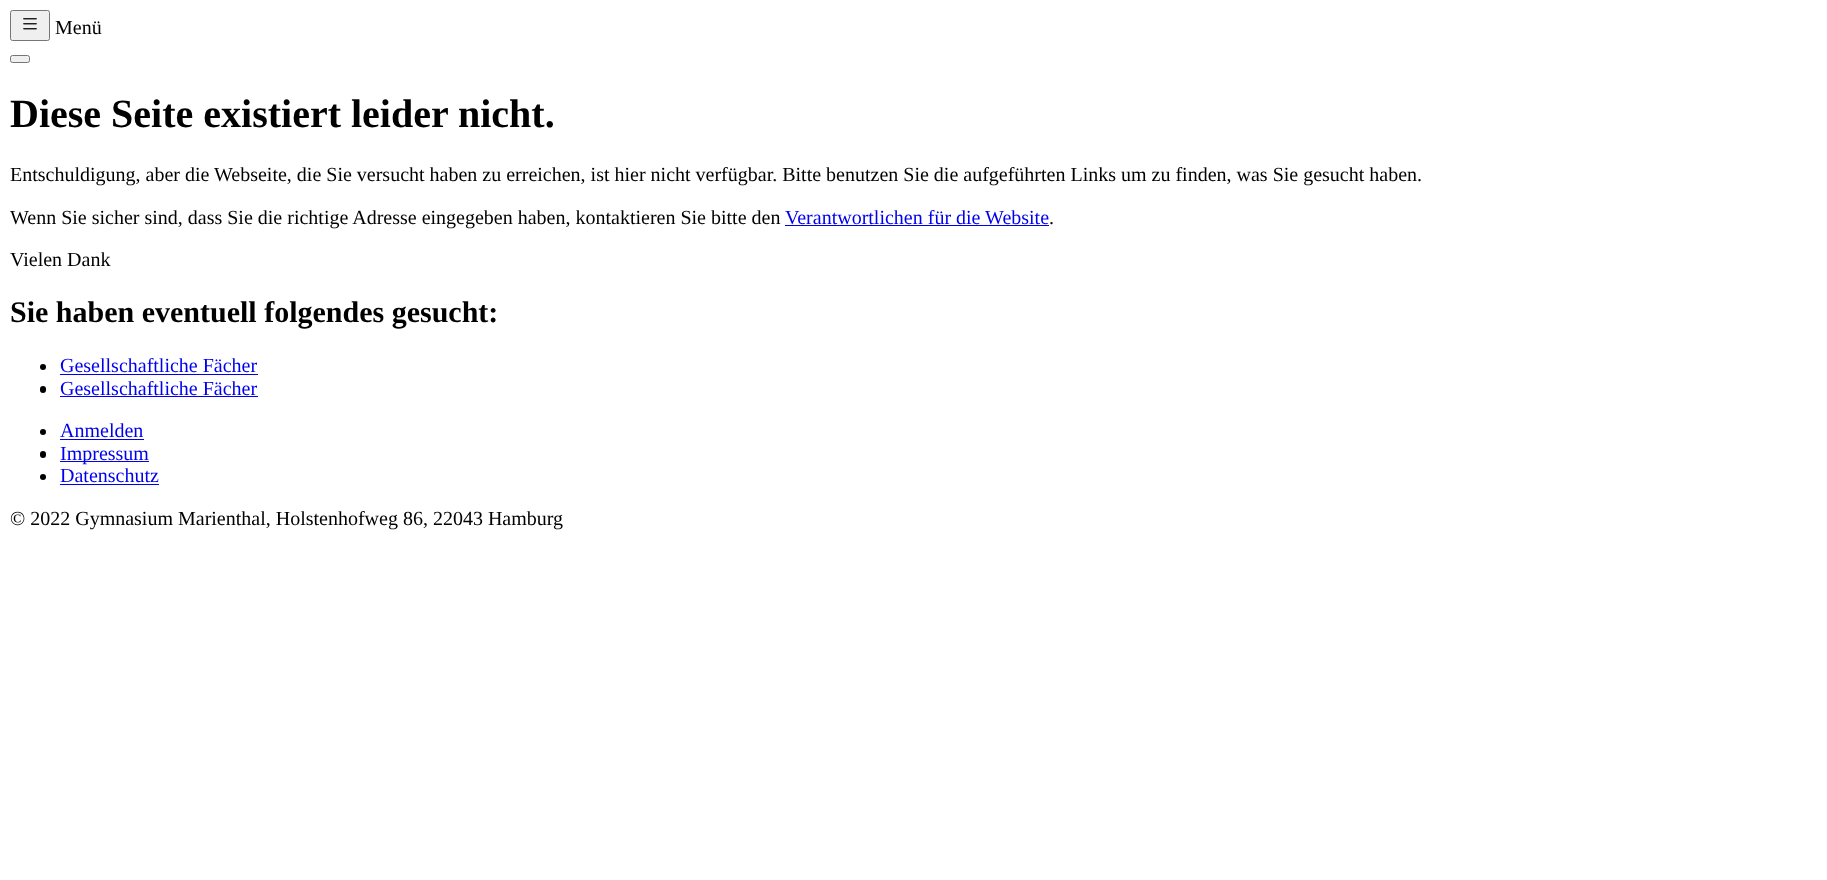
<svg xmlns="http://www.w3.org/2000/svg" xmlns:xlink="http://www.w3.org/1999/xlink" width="1827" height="880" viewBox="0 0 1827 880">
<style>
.cls-1{font:20px Liberation Serif;fill:#000000}
.cls-2{font:bold 40px Liberation Serif;fill:#000000}
.cls-3{font:20px Liberation Serif;fill:#0000ee}
.cls-4{font:bold 30px Liberation Serif;fill:#000000}
</style>
<rect width="100%" height="100%" fill="#ffffff"/>
<rect fill="#efefef" stroke="#767676" x="10.5" y="10.5" width="39" height="30" rx="2"/>
<image xlink:href="image0.png" x="23" y="18" width="14" height="12"/>
<rect fill="#efefef" stroke="#767676" x="10.5" y="55.5" width="19" height="7" rx="2"/>
<rect fill="#0000ee" x="785" y="225" width="264" height="1"/>
<circle fill="#000000" cx="43" cy="367" r="3"/>
<rect fill="#0000ee" x="60" y="374" width="198" height="1"/>
<rect fill="#000000" x="40" y="386" width="6" height="7" rx="3"/>
<rect fill="#0000ee" x="60" y="396" width="198" height="1"/>
<circle fill="#000000" cx="43" cy="432" r="3"/>
<rect fill="#0000ee" x="60" y="439" width="84" height="1"/>
<rect fill="#000000" x="40" y="451" width="6" height="7" rx="3"/>
<rect fill="#0000ee" x="60" y="461" width="89" height="1"/>
<circle fill="#000000" cx="43" cy="477" r="3"/>
<rect fill="#0000ee" x="60" y="484" width="99" height="1"/>
<text class="cls-1" x="55" y="34">Menü</text>
<text class="cls-2" x="10" y="127">Diese Seite existiert leider nicht.</text>
<text class="cls-1" x="10" y="181">Entschuldigung, aber die Webseite, die Sie versucht haben zu erreichen, ist hier nicht verfügbar. Bitte benutzen Sie die aufgeführten Links um zu finden, was Sie gesucht haben.</text>
<text class="cls-1" x="10" y="224">Wenn Sie sicher sind, dass Sie die richtige Adresse eingegeben haben, kontaktieren Sie bitte den</text>
<text class="cls-3" x="785" y="224">Verantwortlichen für die Website</text>
<text class="cls-1" x="1049" y="224">.</text>
<text class="cls-1" x="10" y="266">Vielen Dank</text>
<text class="cls-4" x="10" y="322">Sie haben eventuell folgendes gesucht:</text>
<text class="cls-3"><tspan x="60" y="372">Gesellschaftliche Fächer</tspan><tspan x="60" y="395">Gesellschaftliche Fächer</tspan></text>
<text class="cls-3"><tspan x="60" y="437">Anmelden</tspan><tspan x="60" y="460">Impressum</tspan><tspan x="60" y="482">Datenschutz</tspan></text>
<text class="cls-1" x="10" y="525">© 2022 Gymnasium Marienthal, Holstenhofweg 86, 22043 Hamburg</text>
</svg>
